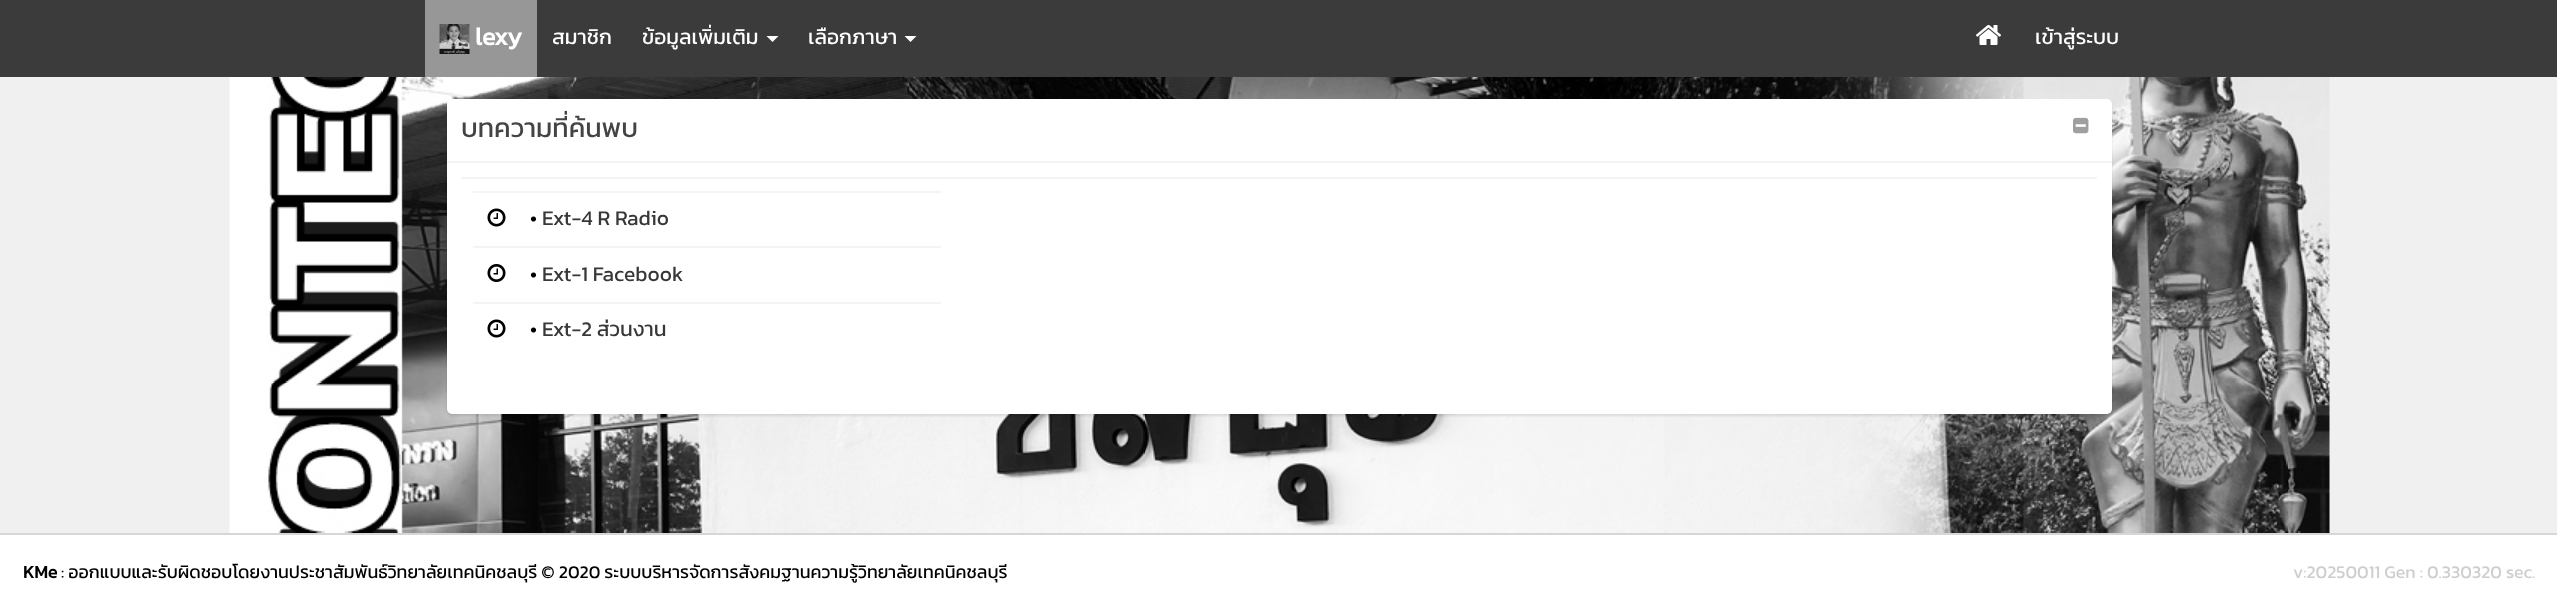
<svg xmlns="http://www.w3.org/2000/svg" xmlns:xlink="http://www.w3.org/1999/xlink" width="2557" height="608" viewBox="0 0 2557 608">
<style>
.cls-1{font:bold 25px Kanit;fill:#ffffff}
.cls-2{font:21px Kanit;fill:#ffffff}
.cls-3{font:27px Kanit;fill:#444444}
.cls-4{font:21px Kanit;fill:#000000}
.cls-5{font:21px Kanit;fill:#383838}
.cls-6{font:bold 17.85px Kanit;fill:#000000}
.cls-7{font:17.85px Kanit;fill:#000000}
.cls-8{font:17.85px Kanit;fill:#cecece}
</style>
<rect width="100%" height="100%" fill="#ffffff"/>
<rect fill="#3b3b3b" x="0" y="0" width="2557" height="77"/>
<rect fill="#979797" x="425" y="0" width="112" height="77"/>
<image xlink:href="image0.png" x="439" y="24" width="31" height="30"/>
<path fill="#ffffff" d="M766.5 36H778.5L772.5 42Z"/>
<path fill="#ffffff" d="M904.5 36H916.5L910.5 42Z"/>
<image xlink:href="image1.png" x="1976" y="25" width="25" height="20"/>
<rect fill="#f0f0f0" x="0" y="77" width="2557" height="456"/>
<image xlink:href="image2.png" x="229" y="77" width="2101" height="456"/>
<rect fill="#000000" fill-opacity="0.1" filter="blur(1px)" x="447" y="101" width="1665" height="315" rx="5"/>
<rect fill="#ffffff" x="447" y="99" width="1665" height="315" rx="5"/>
<rect fill="#f4f4f4" x="447" y="161" width="1665" height="2"/>
<image xlink:href="image3.png" x="2073" y="117" width="16" height="17"/>
<rect fill="#f4f4f4" x="461" y="177" width="1636" height="2"/>
<rect fill="#f4f4f4" x="473" y="191" width="468" height="2"/>
<image xlink:href="image4.png" x="487" y="208" width="19" height="19"/>
<rect fill="#f4f4f4" x="473" y="246" width="468" height="2"/>
<image xlink:href="image5.png" x="487" y="264" width="19" height="18"/>
<rect fill="#f4f4f4" x="473" y="302" width="468" height="2"/>
<image xlink:href="image4.png" x="487" y="319" width="19" height="19"/>
<rect fill="#d6d6d6" x="0" y="533" width="2557" height="2"/>
<text class="cls-1" x="475" y="45">lexy</text>
<text class="cls-2" x="552" y="44">สมาชิก</text>
<text class="cls-2" x="642" y="44">ข้อมูลเพิ่มเติม</text>
<text class="cls-2" x="808" y="44">เลือกภาษา</text>
<text class="cls-2" x="2035" y="44">เข้าสู่ระบบ</text>
<text class="cls-3" x="461" y="137">บทความที่ค้นพบ</text>
<text class="cls-4" x="530" y="225">•</text>
<text class="cls-5" x="542" y="225">Ext-4 R Radio</text>
<text class="cls-4" x="530" y="281">•</text>
<text class="cls-5" x="542" y="281">Ext-1 Facebook</text>
<text class="cls-4" x="530" y="336">•</text>
<text class="cls-5" x="542" y="336">Ext-2 ส่วนงาน</text>
<text class="cls-6" x="23" y="578">KMe</text>
<text class="cls-7" x="61" y="578">: ออกแบบและรับผิดชอบโดยงานประชาสัมพันธ์วิทยาลัยเทคนิคชลบุรี © 2020 ระบบบริหารจัดการสังคมฐานความรู้วิทยาลัยเทคนิคชลบุรี</text>
<text class="cls-8" x="2293" y="578">v:20250011 Gen : 0.330320 sec.</text>
</svg>
